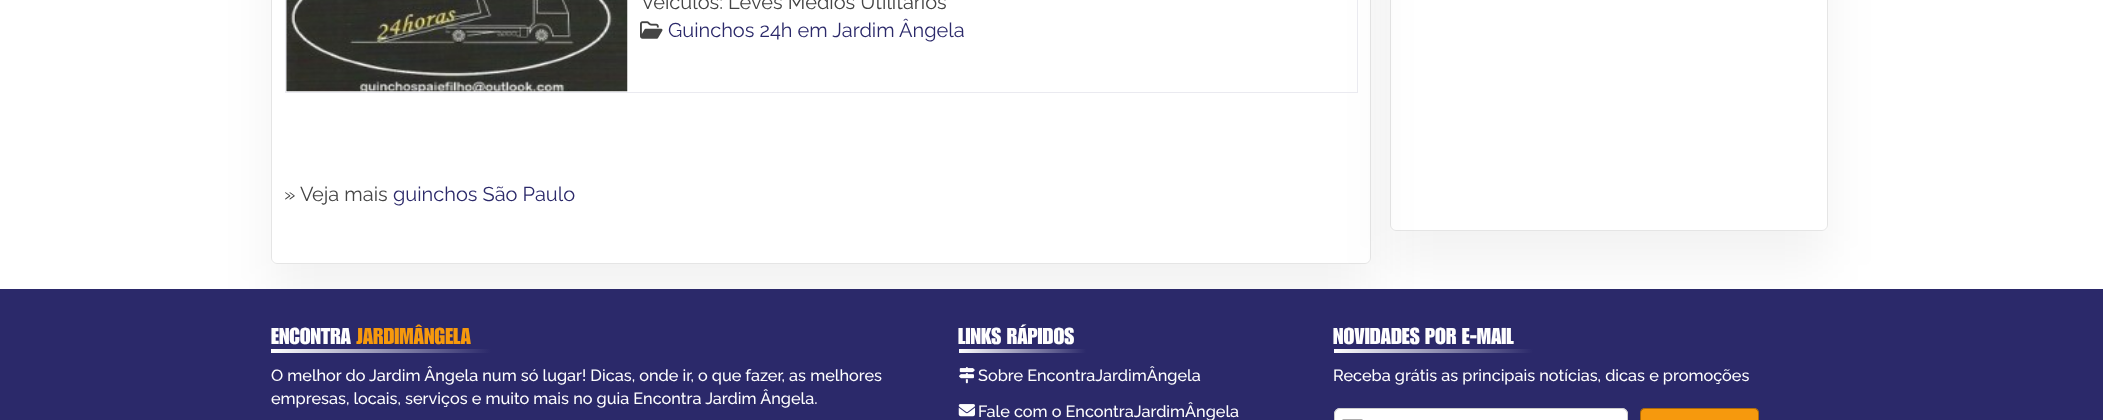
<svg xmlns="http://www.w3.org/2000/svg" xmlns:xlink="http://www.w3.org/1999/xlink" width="2103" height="420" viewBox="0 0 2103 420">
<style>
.cls-1{font:20px Raleway;fill:#444444}
.cls-2{font:20px Raleway;fill:#2b296a}
.cls-3{font:500 22.5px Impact;fill:#fefefe}
.cls-4{font:500 22.5px Impact;fill:#f6990d}
.cls-5{font:500 16.25px Raleway;fill:#fefefe}
</style>
<defs>
<clipPath id="clip1"><path d="M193 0H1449V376H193ZM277-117H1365C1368.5-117 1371-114.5 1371-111V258C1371 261.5 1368.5 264 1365 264H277C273.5 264 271 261.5 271 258V-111C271-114.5 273.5-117 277-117Z" clip-rule="evenodd"/></clipPath>
<clipPath id="clip2"><path d="M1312 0H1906V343H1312ZM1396-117H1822C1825.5-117 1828-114.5 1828-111V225C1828 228.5 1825.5 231 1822 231H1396C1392.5 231 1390 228.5 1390 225V-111C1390-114.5 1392.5-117 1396-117Z" clip-rule="evenodd"/></clipPath>
<linearGradient id="g1" gradientUnits="userSpaceOnUse" x1="271" y1="351" x2="491" y2="351"><stop offset="0" stop-color="#ffffff"/><stop offset="1" stop-color="#2b296a"/></linearGradient>
<linearGradient id="g2" gradientUnits="userSpaceOnUse" x1="959" y1="351" x2="1086" y2="351"><stop offset="0" stop-color="#ffffff"/><stop offset="1" stop-color="#2b296a"/></linearGradient>
<linearGradient id="g3" gradientUnits="userSpaceOnUse" x1="1334" y1="351" x2="1533" y2="351"><stop offset="0" stop-color="#ffffff"/><stop offset="1" stop-color="#2b296a"/></linearGradient>
</defs>
<rect width="100%" height="100%" fill="#ffffff"/>
<g clip-path="url(#clip1)">
<rect fill="#000000" fill-opacity="0.05" filter="blur(25.5px)" x="271" y="-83" width="1100" height="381" rx="6"/>
</g>
<rect fill="none" stroke="#000000" stroke-opacity="0.1" x="271.5" y="-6.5" width="1099" height="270" rx="5.5"/>
<g clip-path="url(#clip2)">
<rect fill="#000000" fill-opacity="0.05" filter="blur(25.5px)" x="1390" y="-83" width="438" height="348" rx="6"/>
</g>
<rect fill="none" stroke="#eaeaf0" x="285.5" y="-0.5" width="1072" height="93"/>
<image xlink:href="image0.png" x="286" y="0" width="342" height="92"/>
<image xlink:href="image1.png" x="640" y="21" width="23" height="18"/>
<rect fill="none" stroke="#000000" stroke-opacity="0.1" x="1390.5" y="-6.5" width="437" height="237" rx="5.5"/>
<rect fill="#2b296a" x="0" y="289" width="2103" height="131"/>
<rect fill="url(#g1)" x="271" y="349" width="220" height="4"/>
<rect fill="url(#g2)" x="959" y="349" width="127" height="4"/>
<image xlink:href="image2.png" x="959" y="367" width="16" height="17"/>
<image xlink:href="image3.png" x="958" y="404" width="17" height="13"/>
<rect fill="url(#g3)" x="1334" y="349" width="199" height="4"/>
<rect fill="#ffffff" x="1334" y="408" width="294" height="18" rx="6"/>
<image xlink:href="image4.png" x="1342" y="419" width="21" height="1"/>
<rect fill="none" stroke="#cccccc" x="1334.5" y="408.5" width="293" height="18" rx="5.5"/>
<rect fill="#f6990d" x="1640" y="408" width="119" height="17" rx="5"/>
<rect fill="none" stroke="#000000" stroke-opacity="0.3" x="1640.5" y="408.5" width="118" height="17" rx="4.5"/>
<text class="cls-1" x="641" y="9">Veiculos: Leves Médios Utilitarios</text>
<text class="cls-2" x="668" y="37">Guinchos 24h em Jardim Ângela</text>
<text class="cls-1" x="284" y="201">» Veja mais</text>
<text class="cls-2" x="393" y="201">guinchos São Paulo</text>
<text class="cls-3" x="271" y="344">ENCONTRA</text>
<text class="cls-4" x="356" y="344">JARDIMÂNGELA</text>
<text class="cls-5"><tspan x="271" y="381">O melhor do Jardim Ângela num só lugar! Dicas, onde ir, o que fazer, as melhores</tspan><tspan x="271" y="404">empresas, locais, serviços e muito mais no guia Encontra Jardim Ângela.</tspan></text>
<text class="cls-3" x="958" y="344">LINKS RÁPIDOS</text>
<text class="cls-5" x="978" y="381">Sobre EncontraJardimÂngela</text>
<text class="cls-5" x="978" y="417">Fale com o EncontraJardimÂngela</text>
<text class="cls-3" x="1333" y="344">NOVIDADES POR E-MAIL</text>
<text class="cls-5" x="1333" y="381">Receba grátis as principais notícias, dicas e promoções</text>
</svg>
